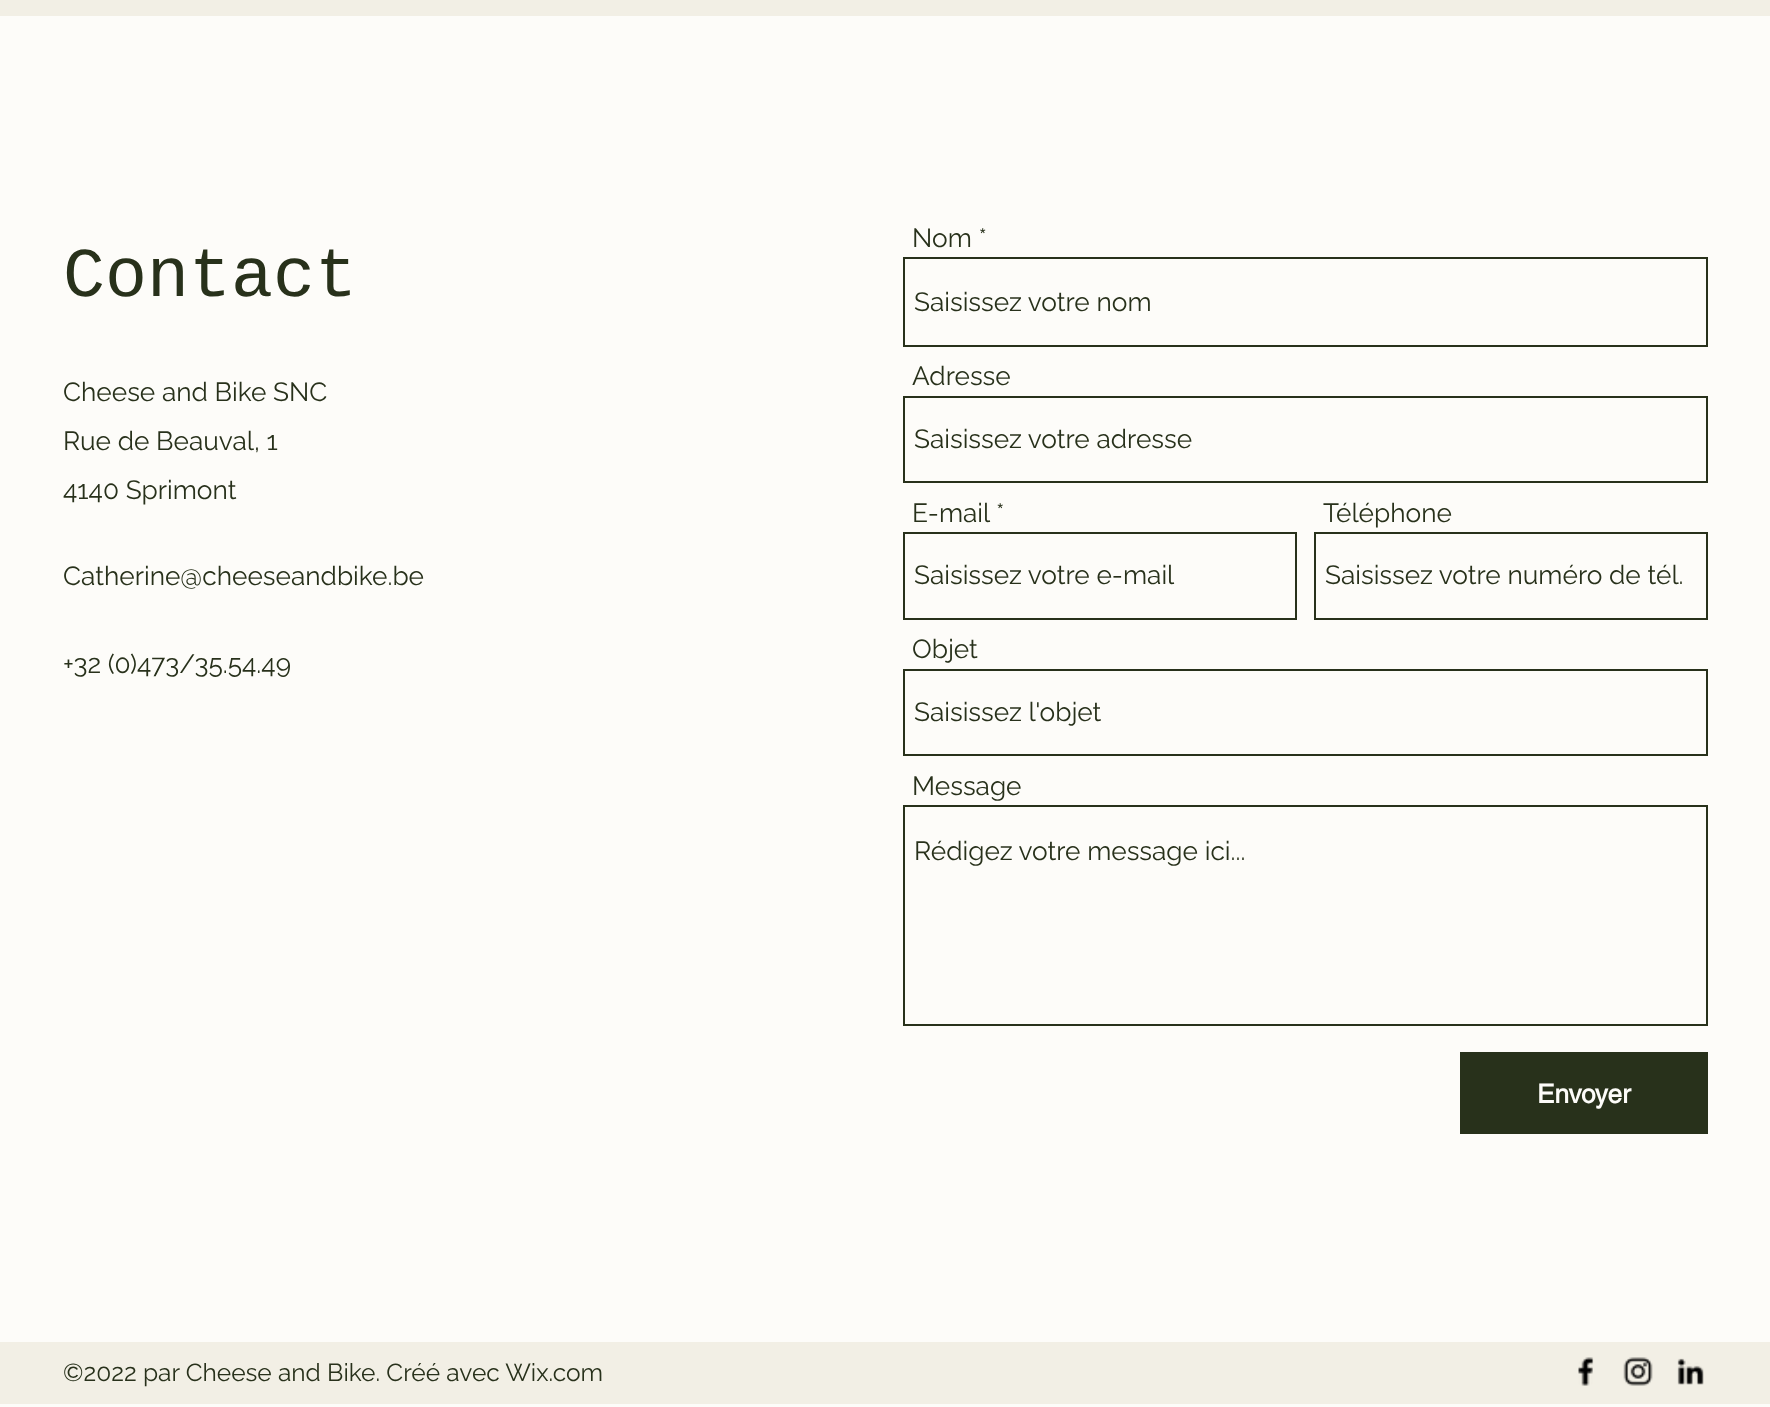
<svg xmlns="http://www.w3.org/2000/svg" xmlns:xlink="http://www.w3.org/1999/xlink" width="1770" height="1407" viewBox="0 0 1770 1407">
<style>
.cls-1{font:70px Liberation Mono;fill:#28311b}
.cls-2{font:26.25px Raleway;fill:#28311b}
.cls-3{font:bold 26.25px helvetica;fill:#fdfcf9}
.cls-4{font:24.5px Raleway;fill:#28311b}
</style>
<rect width="100%" height="100%" fill="#fdfcf9"/>
<rect fill="#f2efe5" x="0" y="0" width="1770" height="16"/>
<rect fill="none" stroke="#28311b" stroke-width="2" x="904" y="258" width="803" height="88"/>
<rect fill="none" stroke="#28311b" stroke-width="2" x="904" y="397" width="803" height="85"/>
<rect fill="none" stroke="#28311b" stroke-width="2" x="904" y="533" width="392" height="86"/>
<rect fill="none" stroke="#28311b" stroke-width="2" x="1315" y="533" width="392" height="86"/>
<rect fill="none" stroke="#28311b" stroke-width="2" x="904" y="670" width="803" height="85"/>
<rect fill="none" stroke="#28311b" stroke-width="2" x="904" y="806" width="803" height="219"/>
<rect fill="#28311b" x="1460" y="1052" width="248" height="82"/>
<rect fill="#f2efe5" x="0" y="1342" width="1770" height="62"/>
<image xlink:href="image0.png" x="1578" y="1357" width="16" height="29"/>
<image xlink:href="image1.png" x="1623" y="1357" width="30" height="29"/>
<image xlink:href="image2.png" x="1677" y="1358" width="27" height="27"/>
<text class="cls-1" x="63" y="296">Contact</text>
<text class="cls-2" x="912" y="247">Nom *</text>
<text class="cls-2" x="914" y="311">Saisissez votre nom</text>
<text class="cls-2" x="912" y="385">Adresse</text>
<text class="cls-2" x="914" y="448">Saisissez votre adresse</text>
<text class="cls-2" x="912" y="522">E-mail</text>
<text class="cls-2" x="996" y="522">*</text>
<text class="cls-2" x="914" y="584">Saisissez votre e-mail</text>
<text class="cls-2" x="1323" y="522">Téléphone</text>
<text class="cls-2" x="1325" y="584">Saisissez votre numéro de tél.</text>
<text class="cls-2" x="912" y="658">Objet</text>
<text class="cls-2" x="914" y="721">Saisissez l'objet</text>
<text class="cls-2" x="912" y="795">Message</text>
<text class="cls-2" x="914" y="860">Rédigez votre message ici...</text>
<text class="cls-3" x="1537" y="1103">Envoyer</text>
<text class="cls-2"><tspan x="63" y="401">Cheese and Bike SNC</tspan><tspan x="63" y="450">Rue de Beauval, 1</tspan><tspan x="63" y="499">4140 Sprimont</tspan></text>
<text class="cls-2" x="63" y="585">Catherine@cheeseandbike.be</text>
<text class="cls-2" x="63" y="673">+32 (0)473/35.54.49</text>
<text class="cls-4" x="63" y="1381">©2022 par Cheese and Bike. Créé avec Wix.com</text>
</svg>
